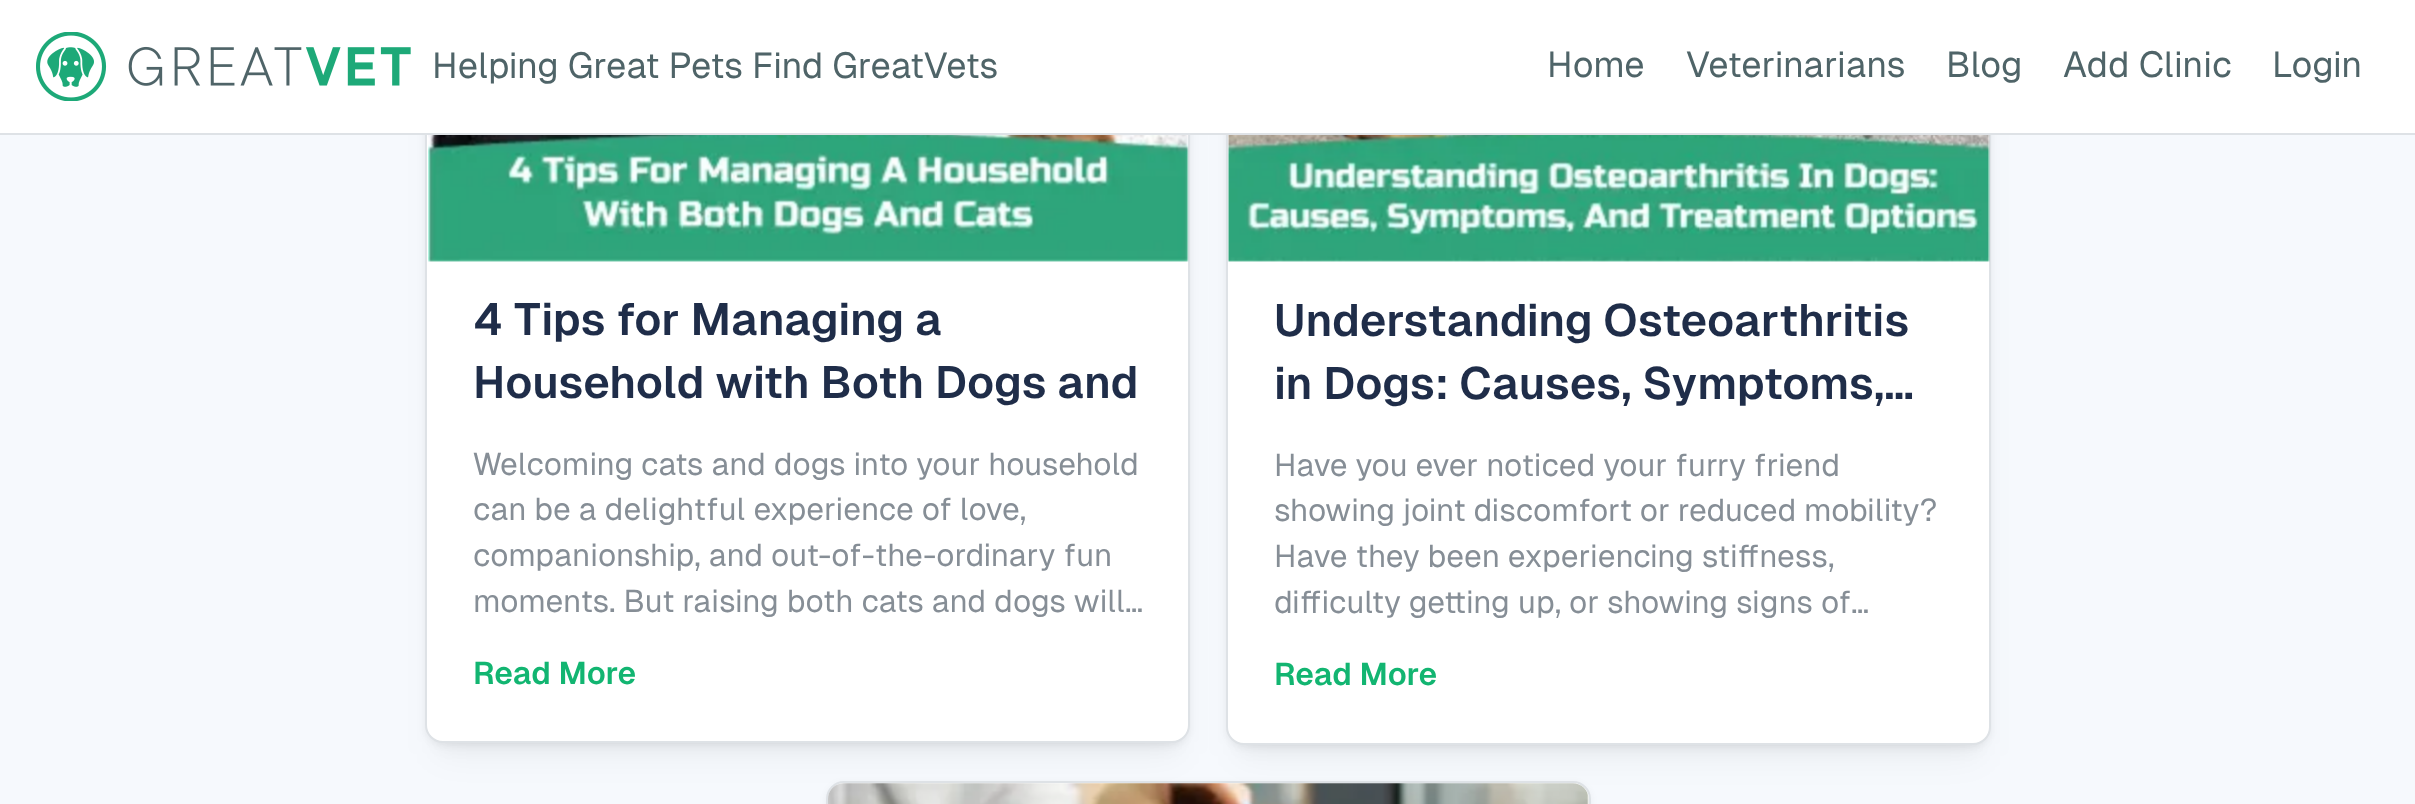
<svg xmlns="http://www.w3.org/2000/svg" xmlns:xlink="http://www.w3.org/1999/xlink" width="2415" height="804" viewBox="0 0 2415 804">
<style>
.cls-1{font:36px Geist;fill:#4f6468}
.cls-2{font:600 45px Geist;fill:#1f2d49}
.cls-3{font:31.5px Geist;fill:#868e96}
.cls-4{font:600 31.5px Geist;fill:#12b571}
</style>
<rect width="100%" height="100%" fill="#f6f9fd"/>
<rect fill="#000000" fill-opacity="0.04" filter="blur(8px)" x="437" y="-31" width="742" height="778" rx="7"/>
<rect fill="#000000" fill-opacity="0.05" filter="blur(17px)" x="437" y="-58" width="742" height="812" rx="7"/>
<rect fill="#000000" fill-opacity="0.05" filter="blur(3.5px)" x="425" y="-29" width="765" height="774" rx="18"/>
<rect fill="#ffffff" stroke="#dee2e6" stroke-width="2" x="426" y="-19" width="763" height="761" rx="17"/>
<rect fill="#000000" fill-opacity="0.04" filter="blur(8px)" x="1238" y="-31" width="742" height="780" rx="7"/>
<image xlink:href="image1.png" x="428" y="135" width="761" height="127"/>
<rect fill="#000000" fill-opacity="0.05" filter="blur(17px)" x="1238" y="-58" width="742" height="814" rx="7"/>
<rect fill="#000000" fill-opacity="0.05" filter="blur(3.5px)" x="1226" y="-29" width="765" height="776" rx="18"/>
<rect fill="#ffffff" stroke="#dee2e6" stroke-width="2" x="1227" y="-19" width="763" height="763" rx="17"/>
<rect fill="#ffffff" x="0" y="0" width="2415" height="133"/>
<rect fill="#dee2e6" x="0" y="133" width="2415" height="2"/>
<image xlink:href="image0.png" x="36" y="32" width="375" height="69"/>
<image xlink:href="image2.png" x="1228" y="135" width="762" height="127"/>
<rect fill="#000000" fill-opacity="0.05" filter="blur(3.5px)" x="826" y="783" width="765" height="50" rx="18"/>
<rect fill="#ffffff" stroke="#dee2e6" stroke-width="2" x="827" y="782" width="763" height="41" rx="17"/>
<image xlink:href="image3.png" x="828" y="783" width="761" height="21"/>
<text class="cls-1" x="432" y="78">Helping Great Pets Find GreatVets</text>
<text class="cls-1" x="1547" y="77">Home</text>
<text class="cls-1" x="1686" y="77">Veterinarians</text>
<text class="cls-1" x="1946" y="77">Blog</text>
<text class="cls-1" x="2063" y="77">Add Clinic</text>
<text class="cls-1" x="2272" y="77">Login</text>
<text class="cls-2"><tspan x="473" y="335">4 Tips for Managing a</tspan><tspan x="473" y="398">Household with Both Dogs and</tspan></text>
<text class="cls-3"><tspan x="473" y="475">Welcoming cats and dogs into your household</tspan><tspan x="473" y="520">can be a delightful experience of love,</tspan><tspan x="473" y="566">companionship, and out-of-the-ordinary fun</tspan><tspan x="473" y="612">moments. But raising both cats and dogs will…</tspan></text>
<text class="cls-4" x="473" y="684">Read More</text>
<text class="cls-2"><tspan x="1274" y="336">Understanding Osteoarthritis</tspan><tspan x="1274" y="399">in Dogs: Causes, Symptoms,…</tspan></text>
<text class="cls-3"><tspan x="1274" y="476">Have you ever noticed your furry friend</tspan><tspan x="1274" y="521">showing joint discomfort or reduced mobility?</tspan><tspan x="1274" y="567">Have they been experiencing stiffness,</tspan><tspan x="1274" y="613">difficulty getting up, or showing signs of…</tspan></text>
<text class="cls-4" x="1274" y="685">Read More</text>
</svg>
